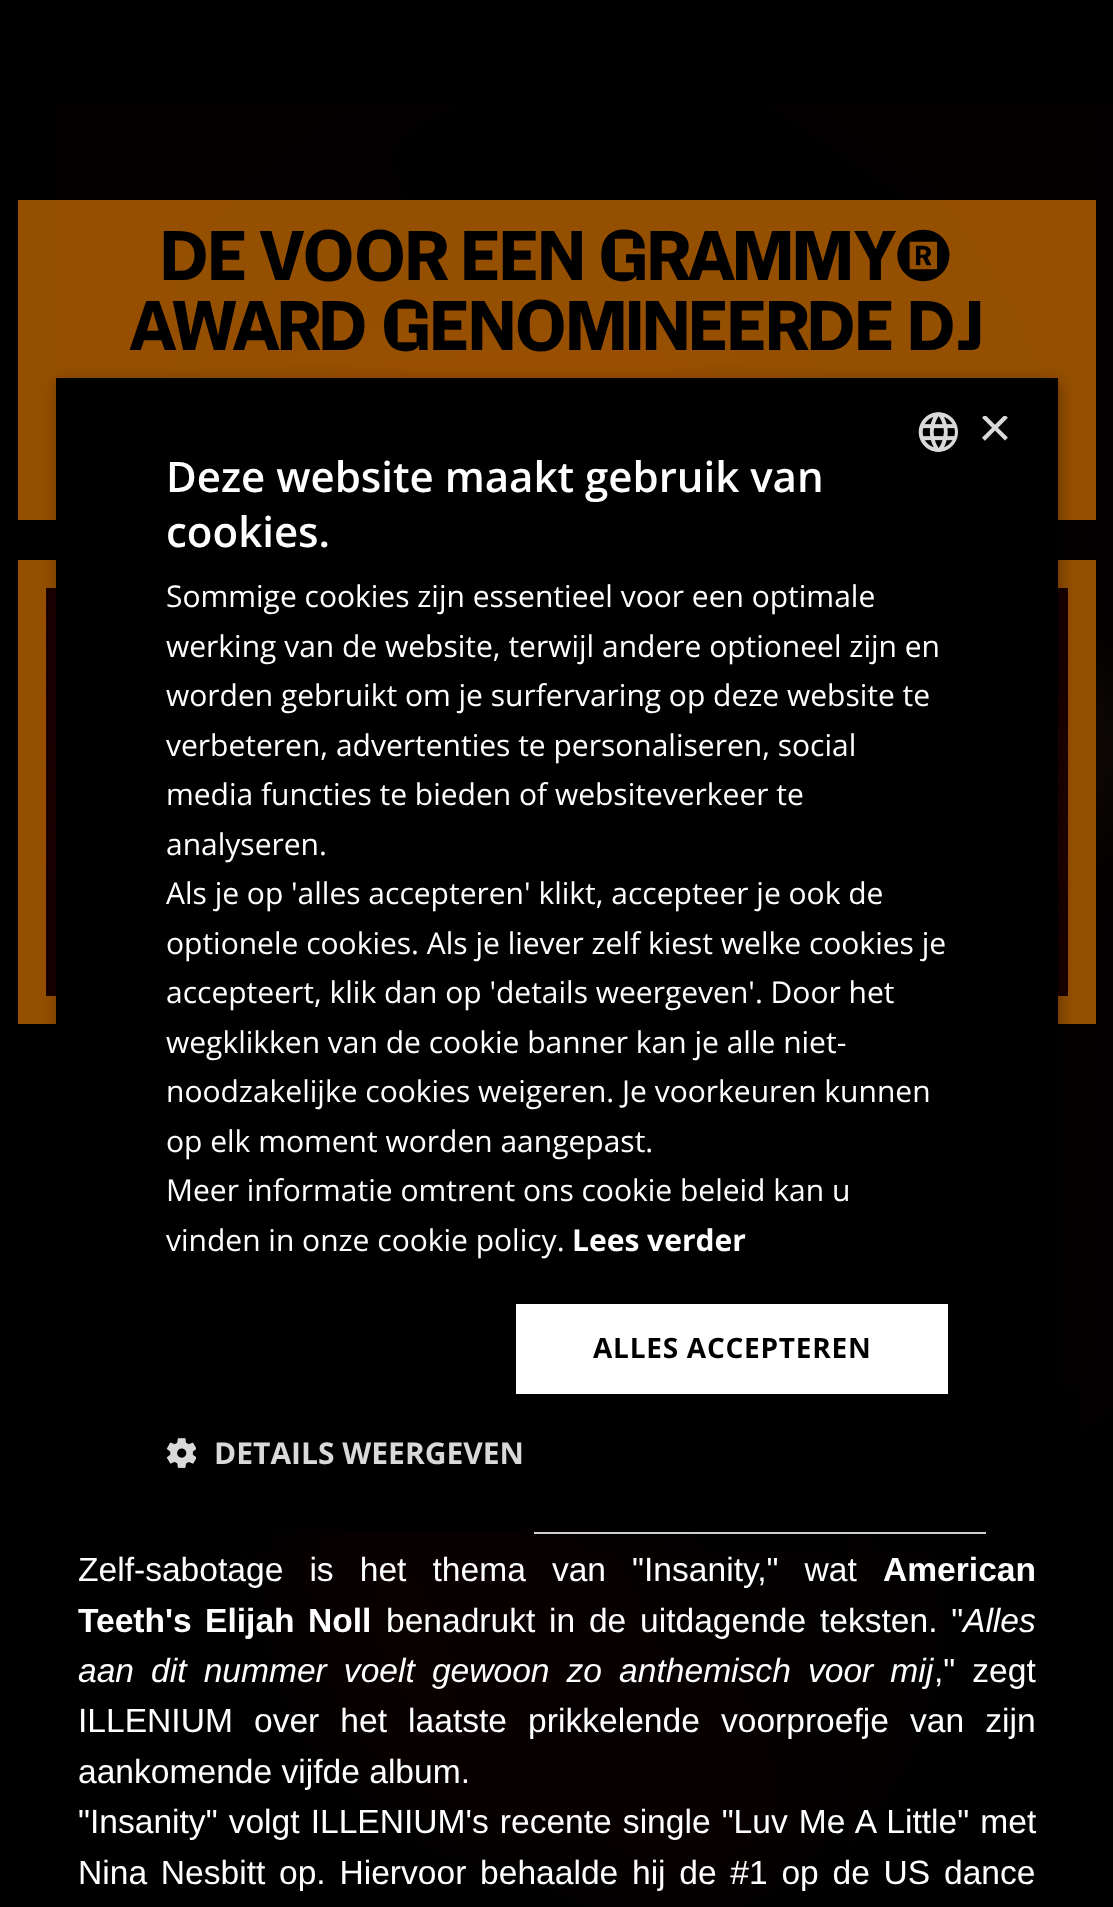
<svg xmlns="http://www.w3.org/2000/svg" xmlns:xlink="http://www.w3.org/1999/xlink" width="1113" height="1907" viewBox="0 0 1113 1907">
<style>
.cls-1{font:70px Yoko;fill:#000000}
.cls-2{font:33.6px Liberation Sans;fill:#ffffff}
.cls-3{font:bold 33.6px Liberation Sans;fill:#ffffff}
.cls-4{font:italic 33.6px Liberation Sans;fill:#ffffff}
.cls-5{font:58px Liberation Sans;fill:#d9d9d9}
.cls-6{font:600 42px Open Sans;fill:#ffffff}
.cls-7{font:30px Open Sans;fill:#ffffff}
.cls-8{font:bold 30px Open Sans;fill:#ffffff}
.cls-9{font:bold 28px Open Sans;letter-spacing:0.75px;fill:#000000}
.cls-10{font:bold 30px Open Sans;fill:#d9d9d9}
</style>
<defs>
<clipPath id="clip1"><rect x="978" y="416" width="30" height="30"/></clipPath>
</defs>
<rect width="100%" height="100%" fill="#000000"/>
<image xlink:href="image0.png" x="57" y="104" width="1056" height="1803"/>
<rect fill="#f98401" fill-opacity="0.6" x="18" y="200" width="1078" height="320"/>
<rect fill="none" stroke="#954f01" stroke-width="28" x="32" y="574" width="1050" height="436"/>
<image xlink:href="image1.png" x="46" y="588" width="1022" height="408"/>
<rect fill="#000000" fill-opacity="0.5" x="245" y="1124" width="603" height="783"/>
<rect fill="#ffffff" x="534" y="1532" width="452" height="2"/>
<rect fill="#000000" fill-opacity="0.35" filter="blur(8px)" x="58" y="382" width="1002" height="1152"/>
<rect fill="#000000" x="56" y="378" width="1002" height="1152"/>
<image xlink:href="image2.png" x="918" y="412" width="40" height="40"/>
<rect fill="#ffffff" x="516" y="1304" width="432" height="90"/>
<image xlink:href="image3.png" x="166" y="1438" width="30" height="30"/>
<text class="cls-1" x="161" y="280">DE VOOR EEN GRAMMY®</text>
<text class="cls-1" x="131" y="350">AWARD GENOMINEERDE DJ</text>
<text class="cls-2" x="78" y="1581" word-spacing="16.75">Zelf-sabotage is het thema van "Insanity," wat</text>
<text class="cls-3" x="883" y="1581">American</text>
<text class="cls-3" x="78" y="1632" word-spacing="4">Teeth's Elijah Noll</text>
<text class="cls-2" x="386" y="1632" word-spacing="4.4">benadrukt in de uitdagende teksten. "</text>
<text class="cls-4" x="963" y="1632">Alles</text>
<text class="cls-4" x="78" y="1682" word-spacing="7.75">aan dit nummer voelt gewoon zo anthemisch voor mij</text>
<text class="cls-2" x="934" y="1682" word-spacing="7.75">," zegt</text>
<text class="cls-2"><tspan x="78" y="1732" word-spacing="11.75">ILLENIUM over het laatste prikkelende voorproefje van zijn</tspan><tspan x="78" y="1783">aankomende vijfde album.</tspan><tspan x="78" y="1833" word-spacing="1.75">"Insanity" volgt ILLENIUM's recente single "Luv Me A Little" met</tspan><tspan x="78" y="1884" word-spacing="4.4">Nina Nesbitt op. Hiervoor behaalde hij de #1 op de US dance</tspan></text>
<g clip-path="url(#clip1)">
<text class="cls-5" x="978" y="447">×</text>
</g>
<text class="cls-6"><tspan x="166" y="492">Deze website maakt gebruik van</tspan><tspan x="166" y="547">cookies.</tspan></text>
<text class="cls-7"><tspan x="166" y="607">Sommige cookies zijn essentieel voor een optimale</tspan><tspan x="166" y="657">werking van de website, terwijl andere optioneel zijn en</tspan><tspan x="166" y="706">worden gebruikt om je surfervaring op deze website te</tspan><tspan x="166" y="756">verbeteren, advertenties te personaliseren, social</tspan><tspan x="166" y="805">media functies te bieden of websiteverkeer te</tspan><tspan x="166" y="855">analyseren.</tspan><tspan x="166" y="904">Als je op 'alles accepteren' klikt, accepteer je ook de</tspan><tspan x="166" y="954">optionele cookies. Als je liever zelf kiest welke cookies je</tspan><tspan x="166" y="1003">accepteert, klik dan op 'details weergeven'. Door het</tspan><tspan x="166" y="1053">wegklikken van de cookie banner kan je alle niet-</tspan><tspan x="166" y="1102">noodzakelijke cookies weigeren. Je voorkeuren kunnen</tspan><tspan x="166" y="1152">op elk moment worden aangepast.</tspan><tspan x="166" y="1201">Meer informatie omtrent ons cookie beleid kan u</tspan><tspan x="166" y="1251">vinden in onze cookie policy.</tspan></text>
<text class="cls-8" x="572" y="1251">Lees verder</text>
<text class="cls-9" x="593" y="1358">ALLES ACCEPTEREN</text>
<text class="cls-10" x="214" y="1464">DETAILS WEERGEVEN</text>
</svg>
